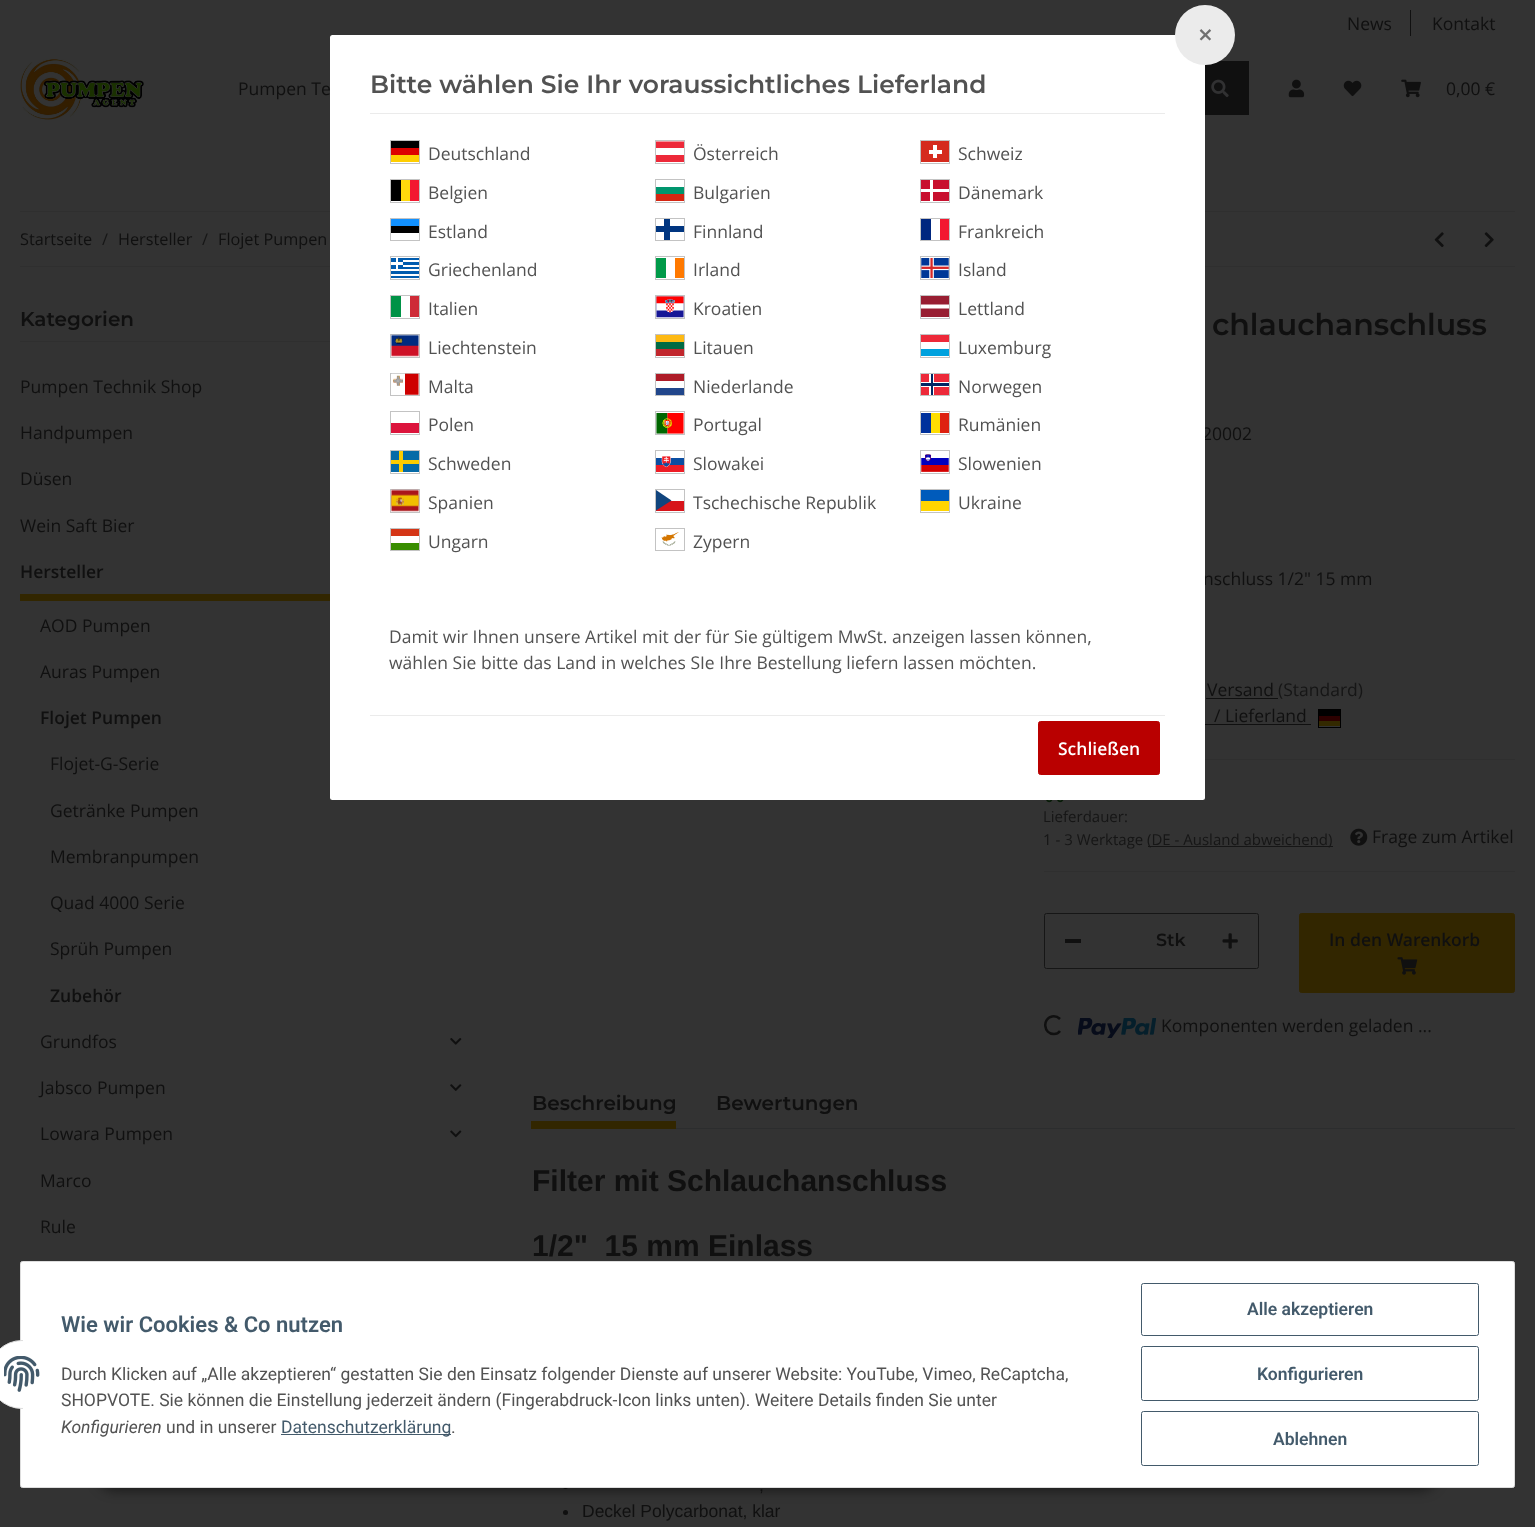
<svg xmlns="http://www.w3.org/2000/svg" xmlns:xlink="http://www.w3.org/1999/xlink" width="1535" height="1527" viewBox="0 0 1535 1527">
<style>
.cls-1{font:17.5px Open Sans;fill:#101010}
.cls-2{font:16.25px Open Sans;fill:#101010}
.cls-3{font:16.25px Open Sans;fill:#161616}
.cls-4{font:600 20px Montserrat;fill:#101010}
.cls-5{font:600 17.5px Open Sans;fill:#101010}
.cls-6{font:600 30px Montserrat;fill:#101010}
.cls-7{font:17.5px Open Sans;fill:#525252}
.cls-8{font:600 26px Open Sans;fill:#707070}
.cls-9{font:600 17.5px Open Sans;fill:#ffffff}
.cls-10{font:600 25px Montserrat;fill:#525252}
.cls-11{font:17.5px Open Sans;fill:#161616}
.cls-12{font:15px Open Sans;fill:#161616}
.cls-13{font:600 17.5px Montserrat;fill:#101010}
.cls-14{font:bold 30px Liberation Sans;fill:#101010}
.cls-15{font:17.5px Liberation Sans;fill:#101010}
.cls-16{font:600 22px Roboto;fill:#435a6b}
.cls-17{font:17.5px Roboto;fill:#525252}
.cls-18{font:italic 17.5px Roboto;fill:#525252}
.cls-19{font:17.5px Roboto;fill:#435a6b}
.cls-20{font:600 17.5px Roboto;fill:#435a6b}
</style>
<rect width="100%" height="100%" fill="#333333"/>
<rect fill="#101010" x="1410" y="10" width="1" height="26"/>
<image xlink:href="image10.png" x="20" y="59" width="124" height="61"/>
<rect fill="#101010" x="1205" y="61" width="44" height="54"/>
<image xlink:href="image11.png" x="1211" y="79" width="18" height="19"/>
<image xlink:href="image12.png" x="1288" y="79" width="17" height="19"/>
<image xlink:href="image13.png" x="1343" y="80" width="19" height="17"/>
<image xlink:href="image14.png" x="1401" y="79" width="20" height="19"/>
<rect fill="#2f2f2f" x="20" y="211" width="1495" height="1"/>
<rect fill="#2f2f2f" x="20" y="266" width="1495" height="1"/>
<image xlink:href="image15.png" x="1434" y="232" width="10" height="16"/>
<image xlink:href="image16.png" x="1484" y="232" width="10" height="16"/>
<rect fill="#2f2f2f" x="20" y="341" width="310" height="1"/>
<rect fill="#322600" x="20" y="594" width="310" height="7"/>
<image xlink:href="image17.png" x="450" y="1038" width="12" height="7"/>
<image xlink:href="image18.png" x="450" y="1084" width="12" height="7"/>
<image xlink:href="image19.png" x="450" y="1130" width="12" height="8"/>
<rect fill="#101010" x="1206" y="698" width="72" height="1"/>
<rect fill="#101010" x="1205" y="724" width="106" height="1"/>
<rect fill="none" stroke="#000000" x="1318.5" y="709.5" width="22" height="18"/>
<rect fill="#000000" x="1319" y="710" width="21" height="6"/>
<rect fill="#2c0000" x="1319" y="716" width="21" height="5"/>
<rect fill="#332900" x="1319" y="721" width="21" height="5"/>
<rect fill="#2f2f2f" x="1205" y="759" width="310" height="1"/>
<rect fill="#2f2f2f" x="1044" y="871" width="471" height="1"/>
<image xlink:href="image20.png" x="1046" y="800" width="18" height="3"/>
<rect fill="#161616" x="1148" y="846" width="185" height="1"/>
<image xlink:href="image21.png" x="1350" y="828" width="18" height="18"/>
<rect fill="none" stroke="#161616" x="1044.5" y="913.5" width="214" height="55" rx="2"/>
<rect fill="#101010" x="1065" y="939" width="16" height="4"/>
<image xlink:href="image22.png" x="1222" y="933" width="16" height="16"/>
<rect fill="#322600" stroke="#322600" x="1299.5" y="913.5" width="215" height="79" rx="2"/>
<image xlink:href="image23.png" x="1397" y="957" width="21" height="18"/>
<path fill="none" stroke="#101010" stroke-width="2.5" d="M1060 1031C1058.5 1033 1056 1034 1054 1034C1043.5 1034 1042 1018.5 1052 1016.5C1055 1016 1058 1017 1060 1019"/>
<image xlink:href="image24.png" x="1078" y="1018" width="78" height="20"/>
<rect fill="#2c2d2e" x="676" y="1128" width="839" height="1"/>
<rect fill="#322600" x="531" y="1121" width="145" height="8"/>
<circle fill="#101010" cx="565.5" cy="1486.5" r="2.5"/>
<circle fill="#101010" cx="565.5" cy="1512.5" r="2.5"/>
<rect fill="#000000" fill-opacity="0.45" filter="blur(6px)" x="96" y="1451" width="1343" height="40" rx="20"/>
<rect fill="#ffffff" stroke="#dddddd" x="20.5" y="1261.5" width="1494" height="226" rx="2"/>
<rect fill="#ffffff" stroke="#dddddd" x="-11.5" y="1340.5" width="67" height="68" rx="33.5"/>
<rect fill="#ffffff" x="23" y="1340" width="33" height="69"/>
<image xlink:href="image25.png" x="4" y="1356" width="36" height="36"/>
<rect fill="#435a6b" x="281" y="1434" width="170" height="1"/>
<rect fill="none" stroke="#435a6b" x="1141.5" y="1283.5" width="337" height="52" rx="2"/>
<rect fill="none" stroke="#435a6b" x="1141.5" y="1346.5" width="337" height="54" rx="2"/>
<rect fill="none" stroke="#435a6b" x="1141.5" y="1411.5" width="337" height="54" rx="2"/>
<text class="cls-1" x="1347" y="30">News</text>
<text class="cls-1" x="1432" y="30">Kontakt</text>
<text class="cls-1" x="238" y="95">Pumpen Te</text>
<text class="cls-1" x="1446" y="95">0,00 €</text>
<text class="cls-2" x="20" y="245">Startseite</text>
<text class="cls-3" x="102" y="245">/</text>
<text class="cls-2" x="118" y="245">Hersteller</text>
<text class="cls-3" x="202" y="245">/</text>
<text class="cls-2" x="218" y="245">Flojet Pumpen</text>
<text class="cls-4" x="20" y="326">Kategorien</text>
<text class="cls-1" x="20" y="393">Pumpen Technik Shop</text>
<text class="cls-1" x="20" y="439">Handpumpen</text>
<text class="cls-1" x="20" y="485">Düsen</text>
<text class="cls-1" x="20" y="532">Wein Saft Bier</text>
<text class="cls-5" x="20" y="578">Hersteller</text>
<text class="cls-1" x="40" y="632">AOD Pumpen</text>
<text class="cls-1" x="40" y="678">Auras Pumpen</text>
<text class="cls-5" x="40" y="724">Flojet Pumpen</text>
<text class="cls-1" x="50" y="770">Flojet-G-Serie</text>
<text class="cls-1" x="50" y="817">Getränke Pumpen</text>
<text class="cls-1" x="50" y="863">Membranpumpen</text>
<text class="cls-1" x="50" y="909">Quad 4000 Serie</text>
<text class="cls-1" x="50" y="955">Sprüh Pumpen</text>
<text class="cls-5" x="50" y="1002">Zubehör</text>
<text class="cls-1" x="40" y="1048">Grundfos</text>
<text class="cls-1" x="40" y="1094">Jabsco Pumpen</text>
<text class="cls-1" x="40" y="1140">Lowara Pumpen</text>
<text class="cls-1" x="40" y="1187">Marco</text>
<text class="cls-1" x="40" y="1233">Rule</text>
<text class="cls-6" x="1212" y="335">chlauchanschluss</text>
<text class="cls-1" x="1202" y="440">20002</text>
<text class="cls-1" x="1203" y="585">nschluss 1/2" 15 mm</text>
<rect fill="#ffffff" x="330" y="35" width="875" height="765" rx="2.5"/>
<rect fill="none" stroke="#c3c3c3" x="655.5" y="528.5" width="29" height="22"/>
<image xlink:href="image9.png" x="661" y="532" width="18" height="14"/>
<text class="cls-7" x="693" y="548">Zypern</text>
<rect fill="none" stroke="#c3c3c3" x="390.5" y="528.5" width="29" height="22"/>
<rect fill="#d43516" x="391" y="529" width="28" height="7"/>
<rect fill="#388d00" x="391" y="543" width="28" height="7"/>
<text class="cls-7" x="428" y="548">Ungarn</text>
<rect fill="none" stroke="#c3c3c3" x="920.5" y="489.5" width="29" height="23"/>
<rect fill="#005bbb" x="921" y="490" width="28" height="11"/>
<rect fill="#ffd500" x="921" y="501" width="28" height="10"/>
<text class="cls-7" x="958" y="509">Ukraine</text>
<rect fill="none" stroke="#c3c3c3" x="655.5" y="489.5" width="29" height="23"/>
<rect fill="#d7141a" x="656" y="501" width="28" height="10"/>
<path fill="#11457e" d="M671.5 500.5L656 490V510.5Z"/>
<text class="cls-7" x="693" y="509">Tschechische Republik</text>
<rect fill="none" stroke="#c3c3c3" x="390.5" y="489.5" width="29" height="23"/>
<image xlink:href="image8.png" x="391" y="489" width="28" height="23"/>
<text class="cls-7" x="428" y="509">Spanien</text>
<rect fill="none" stroke="#c3c3c3" x="920.5" y="450.5" width="29" height="23"/>
<image xlink:href="image7.png" x="921" y="454" width="28" height="18"/>
<text class="cls-7" x="958" y="470">Slowenien</text>
<rect fill="none" stroke="#c3c3c3" x="655.5" y="450.5" width="29" height="23"/>
<image xlink:href="image6.png" x="656" y="456" width="28" height="16"/>
<text class="cls-7" x="693" y="470">Slowakei</text>
<rect fill="none" stroke="#c3c3c3" x="390.5" y="450.5" width="29" height="23"/>
<rect fill="#066aa7" x="391" y="451" width="28" height="21"/>
<rect fill="#fecc00" x="391" y="460" width="28" height="4"/>
<rect fill="#fecc00" x="399" y="451" width="4" height="21"/>
<text class="cls-7" x="428" y="470">Schweden</text>
<rect fill="none" stroke="#c3c3c3" x="920.5" y="411.5" width="29" height="23"/>
<rect fill="#de2110" x="940" y="413" width="9" height="20"/>
<rect fill="#ffde00" x="931" y="413" width="9" height="20"/>
<rect fill="#00319c" x="921" y="413" width="10" height="20"/>
<text class="cls-7" x="958" y="431">Rumänien</text>
<rect fill="none" stroke="#c3c3c3" x="655.5" y="411.5" width="29" height="23"/>
<image xlink:href="image5.png" x="656" y="413" width="28" height="21"/>
<text class="cls-7" x="693" y="431">Portugal</text>
<rect fill="none" stroke="#c3c3c3" x="390.5" y="411.5" width="29" height="23"/>
<rect fill="#dc143c" x="391" y="423" width="28" height="10"/>
<text class="cls-7" x="428" y="431">Polen</text>
<rect fill="none" stroke="#c3c3c3" x="920.5" y="373.5" width="29" height="22"/>
<rect fill="#ed2939" x="921" y="374" width="28" height="21"/>
<rect fill="#ffffff" x="929" y="374" width="5" height="21"/>
<rect fill="#ffffff" x="921" y="382" width="28" height="5"/>
<rect fill="#002664" x="931" y="374" width="2" height="21"/>
<rect fill="#002664" x="921" y="383" width="28" height="3"/>
<text class="cls-7" x="958" y="393">Norwegen</text>
<rect fill="none" stroke="#c3c3c3" x="655.5" y="373.5" width="29" height="22"/>
<rect fill="#ae1c28" x="656" y="374" width="28" height="7"/>
<rect fill="#21468b" x="656" y="388" width="28" height="7"/>
<text class="cls-7" x="693" y="393">Niederlande</text>
<rect fill="none" stroke="#c3c3c3" x="390.5" y="373.5" width="29" height="22"/>
<image xlink:href="image4.png" x="391" y="373" width="28" height="22"/>
<text class="cls-7" x="428" y="393">Malta</text>
<rect fill="none" stroke="#c3c3c3" x="920.5" y="334.5" width="29" height="23"/>
<rect fill="#ed2939" x="921" y="335" width="28" height="7"/>
<rect fill="#00a1de" x="921" y="349" width="28" height="7"/>
<text class="cls-7" x="958" y="354">Luxemburg</text>
<rect fill="none" stroke="#c3c3c3" x="655.5" y="334.5" width="29" height="23"/>
<rect fill="#fdb913" x="656" y="335" width="28" height="7"/>
<rect fill="#c1272d" x="656" y="349" width="28" height="7"/>
<rect fill="#006a44" x="656" y="342" width="28" height="7"/>
<text class="cls-7" x="693" y="354">Litauen</text>
<rect fill="none" stroke="#c3c3c3" x="390.5" y="334.5" width="29" height="23"/>
<image xlink:href="image3.png" x="391" y="334" width="28" height="23"/>
<text class="cls-7" x="428" y="354">Liechtenstein</text>
<rect fill="none" stroke="#c3c3c3" x="920.5" y="295.5" width="29" height="23"/>
<path fill="#981e32" fill-rule="evenodd" d="M921 296H949V304.5H921ZM921 308.5H949V317H921Z"/>
<text class="cls-7" x="958" y="315">Lettland</text>
<rect fill="none" stroke="#c3c3c3" x="655.5" y="295.5" width="29" height="23"/>
<image xlink:href="image2.png" x="656" y="296" width="28" height="22"/>
<text class="cls-7" x="693" y="315">Kroatien</text>
<rect fill="none" stroke="#c3c3c3" x="390.5" y="295.5" width="29" height="23"/>
<rect fill="#ce2b37" x="410" y="296" width="9" height="21"/>
<rect fill="#009246" x="391" y="296" width="10" height="21"/>
<text class="cls-7" x="428" y="315">Italien</text>
<rect fill="none" stroke="#c3c3c3" x="920.5" y="256.5" width="29" height="23"/>
<image xlink:href="image1.png" x="921" y="258" width="28" height="20"/>
<text class="cls-7" x="958" y="276">Island</text>
<rect fill="none" stroke="#c3c3c3" x="655.5" y="256.5" width="29" height="23"/>
<rect fill="#ff7900" x="675" y="258" width="9" height="20"/>
<rect fill="#009a49" x="656" y="258" width="10" height="20"/>
<text class="cls-7" x="693" y="276">Irland</text>
<rect fill="none" stroke="#c3c3c3" x="390.5" y="256.5" width="29" height="23"/>
<image xlink:href="image0.png" x="391" y="258" width="28" height="20"/>
<text class="cls-7" x="428" y="276">Griechenland</text>
<rect fill="none" stroke="#c3c3c3" x="920.5" y="218.5" width="29" height="22"/>
<rect fill="#f31830" x="940" y="219" width="9" height="21"/>
<rect fill="#00267f" x="921" y="219" width="10" height="21"/>
<text class="cls-7" x="958" y="238">Frankreich</text>
<rect fill="none" stroke="#c3c3c3" x="655.5" y="218.5" width="29" height="22"/>
<rect fill="#003580" x="656" y="226" width="28" height="6"/>
<rect fill="#003580" x="664" y="219" width="6" height="21"/>
<text class="cls-7" x="693" y="238">Finnland</text>
<rect fill="none" stroke="#c3c3c3" x="390.5" y="218.5" width="29" height="22"/>
<rect fill="#1291ff" x="391" y="219" width="28" height="7"/>
<rect fill="#000000" x="391" y="226" width="28" height="7"/>
<text class="cls-7" x="428" y="238">Estland</text>
<rect fill="none" stroke="#c3c3c3" x="920.5" y="179.5" width="29" height="23"/>
<rect fill="#c8102e" x="921" y="180" width="28" height="21"/>
<rect fill="#ffffff" x="930" y="180" width="3" height="21"/>
<rect fill="#ffffff" x="921" y="189" width="28" height="3"/>
<text class="cls-7" x="958" y="199">Dänemark</text>
<rect fill="none" stroke="#c3c3c3" x="655.5" y="179.5" width="29" height="23"/>
<rect fill="#00966e" x="656" y="187" width="28" height="7"/>
<rect fill="#d62612" x="656" y="194" width="28" height="7"/>
<text class="cls-7" x="693" y="199">Bulgarien</text>
<rect fill="none" stroke="#c3c3c3" x="390.5" y="179.5" width="29" height="23"/>
<rect fill="#f31830" x="410" y="180" width="9" height="21"/>
<rect fill="#ffd90c" x="401" y="180" width="9" height="21"/>
<rect fill="#000000" x="391" y="180" width="10" height="21"/>
<text class="cls-7" x="428" y="199">Belgien</text>
<rect fill="none" stroke="#c3c3c3" x="920.5" y="140.5" width="29" height="23"/>
<rect fill="#d52b1e" x="921" y="141" width="28" height="21"/>
<rect fill="#ffffff" x="929" y="150" width="13" height="4"/>
<rect fill="#ffffff" x="933" y="145" width="4" height="13"/>
<text class="cls-7" x="958" y="160">Schweiz</text>
<rect fill="none" stroke="#c3c3c3" x="655.5" y="140.5" width="29" height="23"/>
<path fill="#ed2939" fill-rule="evenodd" d="M684 162H656V155H684ZM684 148H656V141.5H684Z"/>
<text class="cls-7" x="693" y="160">Österreich</text>
<rect fill="none" stroke="#c3c3c3" x="390.5" y="140.5" width="29" height="23"/>
<rect fill="#dd0000" x="391" y="148" width="28" height="7"/>
<rect fill="#000000" x="391" y="141" width="28" height="7"/>
<rect fill="#ffce00" x="391" y="155" width="28" height="7"/>
<text class="cls-7" x="428" y="160">Deutschland</text>
<text class="cls-7" x="389" y="669">wählen Sie bitte das Land in welches SIe Ihre Bestellung liefern lassen möchten.</text>
<text class="cls-7" x="389" y="643">Damit wir Ihnen unsere Artikel mit der für Sie gültigem MwSt. anzeigen lassen können,</text>
<circle fill="#ebebeb" cx="1205" cy="35" r="30"/>
<text class="cls-8" x="1198" y="44">×</text>
<rect fill="#b90000" stroke="#b90000" x="1038.5" y="721.5" width="121" height="53" rx="2"/>
<text class="cls-9" x="1058" y="755">Schließen</text>
<rect fill="#ebebeb" x="370" y="715" width="795" height="1"/>
<text class="cls-10" x="370" y="93">Bitte wählen Sie Ihr voraussichtliches Lieferland</text>
<rect fill="#ebebeb" x="370" y="113" width="795" height="1"/>
<text class="cls-1" x="1207" y="696">Versand</text>
<text class="cls-11" x="1278" y="696">(Standard)</text>
<text class="cls-1" x="1214" y="722">/ Lieferland</text>
<text class="cls-12"><tspan x="1043" y="822">Lieferdauer:</tspan><tspan x="1043" y="845">1 - 3 Werktage</tspan></text>
<text class="cls-12" x="1147" y="845">(DE - Ausland abweichend)</text>
<text class="cls-1" x="1372" y="843">Frage zum Artikel</text>
<text class="cls-13" x="1156" y="946">Stk</text>
<text class="cls-5" x="1329" y="946">In den Warenkorb</text>
<text class="cls-1" x="1161" y="1032">Komponenten werden geladen ...</text>
<text class="cls-4" x="532" y="1110">Beschreibung</text>
<text class="cls-4" x="716" y="1110">Bewertungen</text>
<text class="cls-14" x="532" y="1191">Filter mit Schlauchanschluss</text>
<text class="cls-14" xml:space="preserve" x="532" y="1256">1/2"  15 mm Einlass</text>
<text class="cls-15" x="759" y="1491">,</text>
<text class="cls-15" x="582" y="1517">Deckel Polycarbonat, klar</text>
<text class="cls-16" x="61" y="1332">Wie wir Cookies &amp; Co nutzen</text>
<text class="cls-17"><tspan x="61" y="1380">Durch Klicken auf „Alle akzeptieren“ gestatten Sie den Einsatz folgender Dienste auf unserer Website: YouTube, Vimeo, ReCaptcha,</tspan><tspan x="61" y="1406">SHOPVOTE. Sie können die Einstellung jederzeit ändern (Fingerabdruck-Icon links unten). Weitere Details finden Sie unter</tspan></text>
<text class="cls-18" x="61" y="1433">Konfigurieren</text>
<text class="cls-17" x="166" y="1433">und in unserer</text>
<text class="cls-19" x="281" y="1433">Datenschutzerklärung</text>
<text class="cls-17" x="451" y="1433">.</text>
<text class="cls-20" x="1247" y="1315">Alle akzeptieren</text>
<text class="cls-20" x="1257" y="1380">Konfigurieren</text>
<text class="cls-20" x="1273" y="1445">Ablehnen</text>
</svg>
